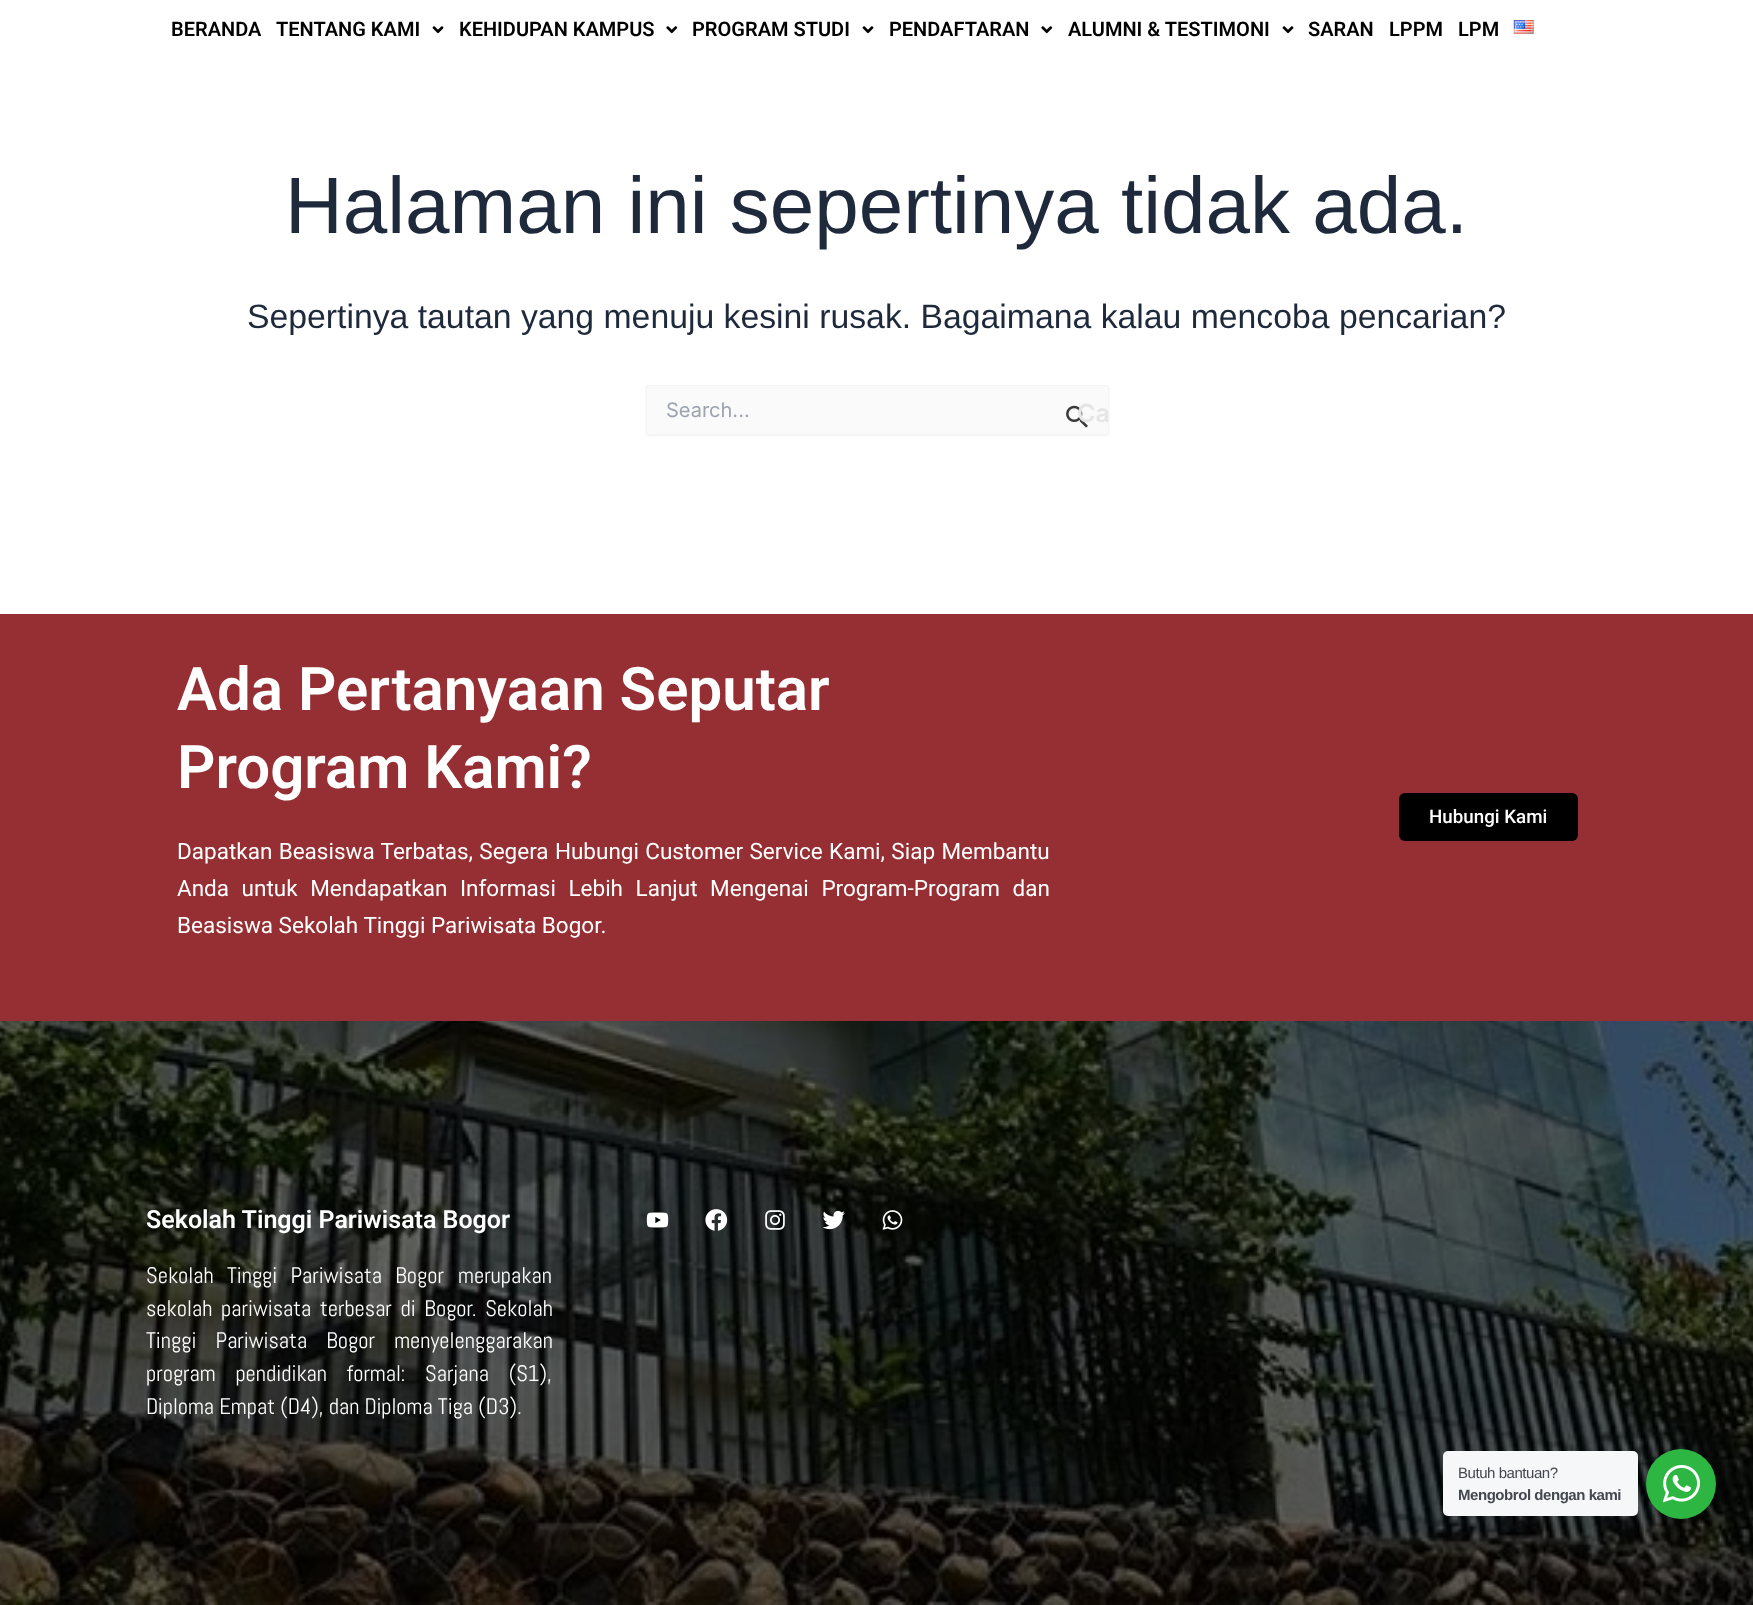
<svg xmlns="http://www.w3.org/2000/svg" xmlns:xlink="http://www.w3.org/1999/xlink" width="1753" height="1605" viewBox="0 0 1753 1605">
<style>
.cls-1{font:600 20px Roboto;fill:#000000}
.cls-2{font:80px Liberation Sans;fill:#1e293b}
.cls-3{font:33.75px Liberation Sans;fill:#1e293b}
.cls-4{font:20px Inter;fill:#9ca3af}
.cls-5{font:600 25px Inter;fill:#e5e5e5}
.cls-6{font:600 60px Roboto;fill:#ffffff}
.cls-7{font:22.5px Roboto;fill:#ffffff}
.cls-8{font:500 18.75px Roboto;fill:#ffffff}
.cls-9{font:600 25px Roboto;fill:#ffffff}
.cls-10{font:22.5px Abel;fill:#ffffff}
.cls-11{font:15px Liberation Sans;letter-spacing:-0.45px;fill:#43474e}
.cls-12{font:bold 15px Liberation Sans;letter-spacing:-0.45px;fill:#43474e}
</style>
<rect width="100%" height="100%" fill="#ffffff"/>
<image xlink:href="image0.png" x="432" y="26" width="12" height="8"/>
<image xlink:href="image1.png" x="666" y="26" width="12" height="8"/>
<image xlink:href="image0.png" x="862" y="26" width="12" height="8"/>
<image xlink:href="image1.png" x="1041" y="26" width="12" height="8"/>
<image xlink:href="image0.png" x="1282" y="26" width="12" height="8"/>
<image xlink:href="image2.png" x="1513" y="20" width="21" height="14"/>
<rect fill="#000000" fill-opacity="0.05" filter="blur(1px)" x="646" y="386" width="463" height="50" rx="2.5"/>
<rect fill="#fafafa" stroke="#f2f5f7" x="646.5" y="385.5" width="462" height="49" rx="2"/>
<image xlink:href="image3.png" x="1066" y="405" width="22" height="23"/>
<rect fill="#962f33" x="0" y="614" width="1753" height="407"/>
<rect fill="#000000" x="1399" y="793" width="179" height="48" rx="6"/>
<image xlink:href="image4.png" x="0" y="1021" width="1753" height="584"/>
<image xlink:href="image5.png" x="646" y="1212" width="23" height="16"/>
<image xlink:href="image6.png" x="705" y="1209" width="23" height="22"/>
<image xlink:href="image7.png" x="765" y="1210" width="20" height="20"/>
<image xlink:href="image8.png" x="823" y="1210" width="22" height="20"/>
<image xlink:href="image9.png" x="882" y="1210" width="21" height="20"/>
<rect fill="#000000" fill-opacity="0.14" filter="blur(5px)" x="1644" y="1454" width="75" height="75" rx="37.5"/>
<rect fill="#f5f7f9" x="1443" y="1451" width="195" height="65" rx="5"/>
<circle fill="#2db742" cx="1681" cy="1484" r="35"/>
<image xlink:href="image10.png" x="1663" y="1465" width="37" height="38"/>
<text class="cls-1" x="171" y="36">BERANDA</text>
<text class="cls-1" x="276" y="36">TENTANG KAMI</text>
<text class="cls-1" x="459" y="36">KEHIDUPAN KAMPUS</text>
<text class="cls-1" x="692" y="36">PROGRAM STUDI</text>
<text class="cls-1" x="889" y="36">PENDAFTARAN</text>
<text class="cls-1" x="1068" y="36">ALUMNI &amp; TESTIMONI</text>
<text class="cls-1" x="1308" y="36">SARAN</text>
<text class="cls-1" x="1389" y="36">LPPM</text>
<text class="cls-1" x="1458" y="36">LPM</text>
<text class="cls-2" x="285" y="233">Halaman ini sepertinya tidak ada.</text>
<text class="cls-3" x="247" y="328">Sepertinya tautan yang menuju kesini rusak. Bagaimana kalau mencoba pencarian?</text>
<text class="cls-4" x="666" y="417">Search...</text>
<text class="cls-5" x="1077" y="422">Ca</text>
<text class="cls-6"><tspan x="177" y="710">Ada Pertanyaan Seputar</tspan><tspan x="177" y="788">Program Kami?</tspan></text>
<text class="cls-7"><tspan x="177" y="859" word-spacing="0.75">Dapatkan Beasiswa Terbatas, Segera Hubungi Customer Service Kami, Siap Membantu</tspan><tspan x="177" y="896" word-spacing="7">Anda untuk Mendapatkan Informasi Lebih Lanjut Mengenai Program-Program dan</tspan><tspan x="177" y="933">Beasiswa Sekolah Tinggi Pariwisata Bogor.</tspan></text>
<text class="cls-8" x="1429" y="823">Hubungi Kami</text>
<text class="cls-9" x="146" y="1228">Sekolah Tinggi Pariwisata Bogor</text>
<text class="cls-10" x="146" y="1283" word-spacing="8">Sekolah Tinggi Pariwisata Bogor</text>
<text class="cls-10" x="458" y="1283">merupakan</text>
<text class="cls-10"><tspan x="146" y="1316" word-spacing="3.5">sekolah pariwisata terbesar di Bogor. Sekolah</tspan><tspan x="146" y="1348" word-spacing="14">Tinggi Pariwisata Bogor menyelenggarakan</tspan><tspan x="146" y="1381" word-spacing="14.5">program pendidikan formal: Sarjana (S1),</tspan><tspan x="146" y="1414">Diploma Empat (D4), dan Diploma Tiga (D3).</tspan></text>
<text class="cls-11" x="1458" y="1478">Butuh bantuan?</text>
<text class="cls-12" x="1458" y="1500">Mengobrol dengan kami</text>
</svg>
